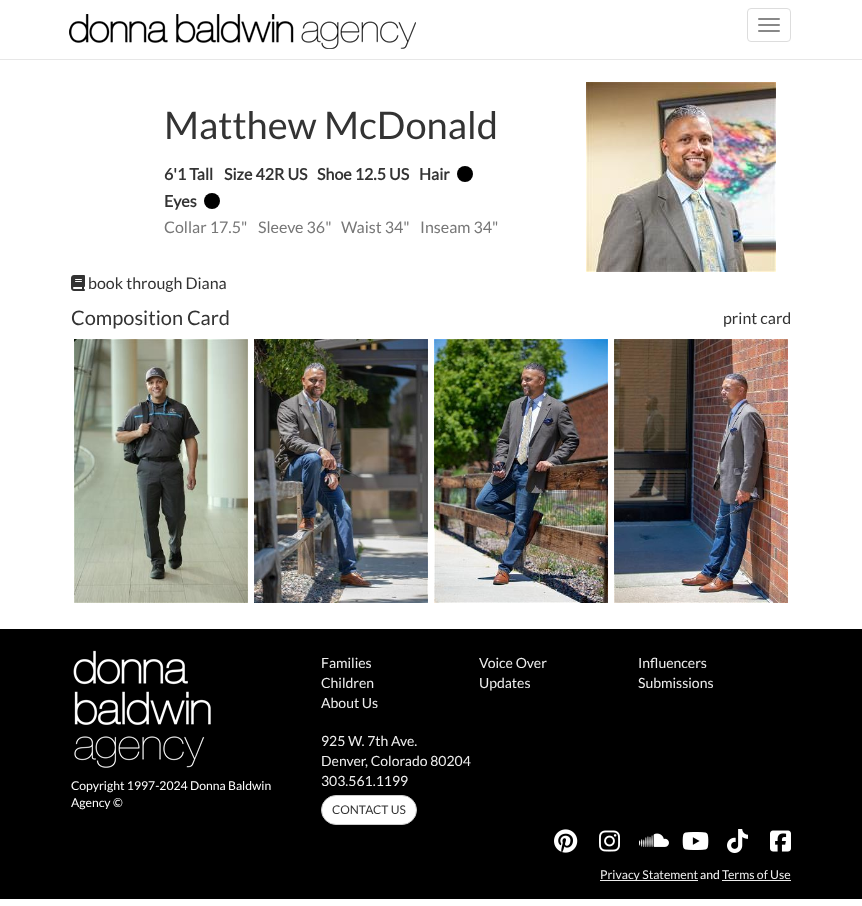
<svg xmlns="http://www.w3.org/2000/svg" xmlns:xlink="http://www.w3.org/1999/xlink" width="862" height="906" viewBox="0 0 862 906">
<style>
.cls-1{font:38px Lato;fill:#333333}
.cls-2{font:bold 16px Lato;fill:#333333}
.cls-3{font:16px Lato;fill:#777777}
.cls-4{font:16px Lato;fill:#333333}
.cls-5{font:20px Lato;fill:#333333}
.cls-6{font:12.2px Lato;fill:#ffffff}
.cls-7{font:14px Lato;fill:#eeeeee}
.cls-8{font:12px Lato;fill:#333333}
.cls-9{font:12.2px Lato;fill:#eeeeee}
</style>
<rect width="100%" height="100%" fill="#ffffff"/>
<rect fill="#e7e7e7" x="0" y="59" width="862" height="1"/>
<image xlink:href="image0.png" x="69" y="14" width="347" height="35"/>
<rect fill="none" stroke="#dddddd" x="747.5" y="8.5" width="43" height="33" rx="3.5"/>
<rect fill="#888888" x="758" y="18" width="22" height="2" rx="1"/>
<rect fill="#888888" x="758" y="24" width="22" height="2" rx="1"/>
<rect fill="#888888" x="758" y="30" width="22" height="2" rx="1"/>
<circle fill="#000000" cx="465" cy="174" r="8"/>
<circle fill="#000000" cx="212" cy="201" r="8"/>
<image xlink:href="image1.png" x="586" y="82" width="190" height="190"/>
<image xlink:href="image2.png" x="71" y="275" width="14" height="16"/>
<image xlink:href="image3.png" x="74" y="339" width="174" height="264"/>
<image xlink:href="image4.png" x="254" y="339" width="174" height="264"/>
<image xlink:href="image5.png" x="434" y="339" width="174" height="264"/>
<image xlink:href="image6.png" x="614" y="339" width="174" height="264"/>
<rect fill="#000000" x="0" y="629" width="862" height="270"/>
<image xlink:href="image7.png" x="73" y="650" width="138" height="118"/>
<rect fill="#ffffff" stroke="#cccccc" x="321.5" y="795.5" width="95" height="29" rx="14.5"/>
<image xlink:href="image8.png" x="554" y="829" width="24" height="24"/>
<image xlink:href="image9.png" x="599" y="830" width="21" height="22"/>
<image xlink:href="image10.png" x="639" y="833" width="30" height="14"/>
<image xlink:href="image11.png" x="682" y="832" width="27" height="18"/>
<image xlink:href="image12.png" x="727" y="829" width="21" height="24"/>
<image xlink:href="image13.png" x="770" y="830" width="21" height="22"/>
<rect fill="#eeeeee" x="600" y="880" width="98" height="1"/>
<rect fill="#eeeeee" x="722" y="880" width="69" height="1"/>
<text class="cls-1" x="164" y="139">Matthew McDonald</text>
<text class="cls-2" x="164" y="180">6'1 Tall</text>
<text class="cls-2" x="224" y="180">Size 42R US</text>
<text class="cls-2" x="317" y="180">Shoe 12.5 US</text>
<text class="cls-2" x="419" y="180">Hair</text>
<text class="cls-2" x="164" y="207">Eyes</text>
<text class="cls-3" x="164" y="233">Collar 17.5"</text>
<text class="cls-3" x="258" y="233">Sleeve 36"</text>
<text class="cls-3" x="341" y="233">Waist 34"</text>
<text class="cls-3" x="420" y="233">Inseam 34"</text>
<text class="cls-4" x="88" y="289">book through Diana</text>
<text class="cls-5" x="71" y="325">Composition Card</text>
<text class="cls-4" x="723" y="324">print card</text>
<text class="cls-6"><tspan x="71" y="790">Copyright 1997-2024 Donna Baldwin</tspan><tspan x="71" y="807">Agency ©</tspan></text>
<text class="cls-7" x="321" y="668">Families</text>
<text class="cls-7" x="479" y="668">Voice Over</text>
<text class="cls-7" x="638" y="668">Influencers</text>
<text class="cls-7" x="321" y="688">Children</text>
<text class="cls-7" x="479" y="688">Updates</text>
<text class="cls-7" x="638" y="688">Submissions</text>
<text class="cls-7" x="321" y="708">About Us</text>
<text class="cls-7"><tspan x="321" y="746">925 W. 7th Ave.</tspan><tspan x="321" y="766">Denver</tspan></text>
<text class="cls-7" x="365" y="766">, Colorado 80204</text>
<text class="cls-7" x="321" y="786">303.561.1199</text>
<text class="cls-8" x="332" y="814">CONTACT US</text>
<text class="cls-9" x="600" y="879">Privacy Statement</text>
<text class="cls-6" x="700" y="879">and</text>
<text class="cls-9" x="722" y="879">Terms of Use</text>
</svg>
